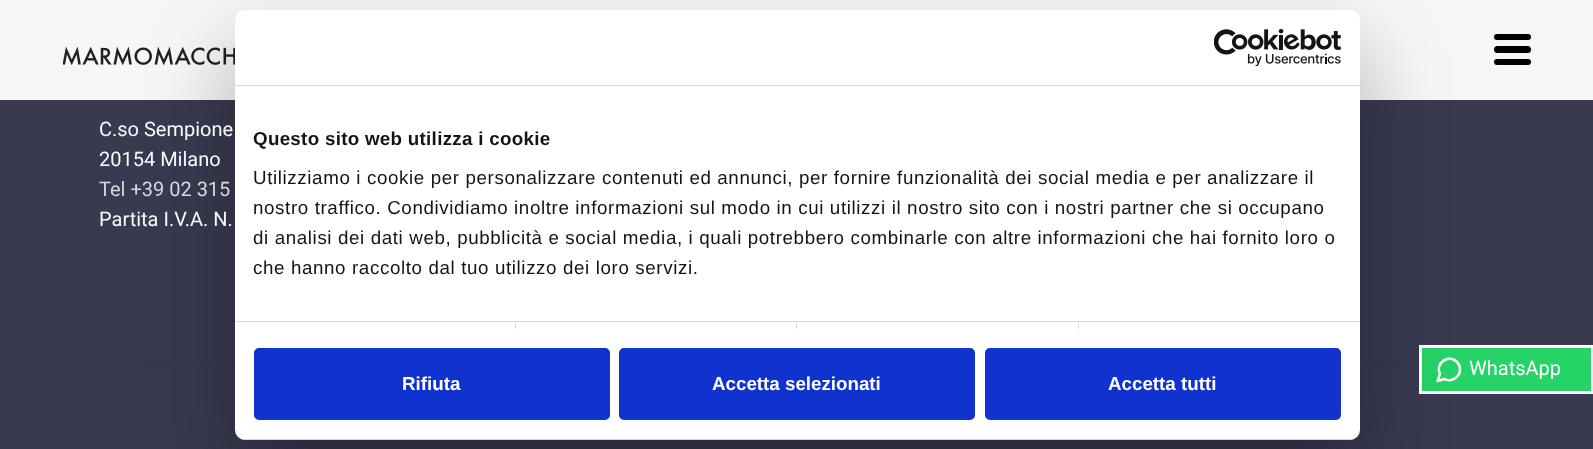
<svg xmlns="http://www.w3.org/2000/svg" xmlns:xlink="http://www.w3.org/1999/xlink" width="1593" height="449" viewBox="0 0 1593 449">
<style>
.cls-1{font:20px Roboto;fill:#f8f9fa}
.cls-2{font:20px Roboto;fill:#d7d8dc}
.cls-3{font:20px Roboto;fill:#ffffff}
.cls-4{font:bold 18.75px Liberation Sans;letter-spacing:0.3px;fill:#141414}
.cls-5{font:18.75px Liberation Sans;letter-spacing:0.62px;fill:#141414}
.cls-6{font:bold 18.75px Liberation Sans;fill:#ffffff}
</style>
<defs>
<clipPath id="clip1"><rect x="235" y="10" width="1125" height="430" rx="10"/></clipPath>
</defs>
<rect width="100%" height="100%" fill="#393a50"/>
<rect fill="#f6f6f6" x="0" y="0" width="1593" height="100"/>
<image xlink:href="image0.png" x="63" y="46" width="172" height="20"/>
<rect fill="#000000" x="1494" y="46" width="37" height="7" rx="3.5"/>
<rect fill="#000000" x="1494" y="34" width="37" height="6" rx="3"/>
<rect fill="#000000" x="1494" y="59" width="37" height="6" rx="3"/>
<rect fill="#333546" x="0" y="365" width="1419" height="1"/>
<rect fill="#25d366" stroke="#ffffff" stroke-width="3" x="1420.5" y="346.5" width="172" height="46"/>
<path fill="none" stroke="#ffffff" stroke-width="2.5" stroke-linecap="round" stroke-linejoin="round" d="M1460 369.5C1460 377 1451.5 382.5 1444.5 379L1437.5 381L1440 374C1434.5 363.5 1448.5 353.5 1457 362C1459 364 1460 366.5 1460 369.5Z"/>
<rect fill="#000000" fill-opacity="0.3" filter="blur(42.5px)" x="235" y="50" width="1125" height="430" rx="10"/>
<rect fill="#ffffff" x="235" y="10" width="1125" height="430" rx="10"/>
<rect fill="#d6d6d6" x="235" y="85" width="1125" height="1"/>
<image xlink:href="image1.png" x="1214" y="29" width="127" height="37"/>
<rect fill="#d6d6d6" x="235" y="321" width="1125" height="1"/>
<rect fill="#d6d6d6" x="515" y="323" width="1" height="6"/>
<rect fill="#d6d6d6" x="796" y="323" width="1" height="6"/>
<rect fill="#d6d6d6" x="1078" y="323" width="1" height="6"/>
<g clip-path="url(#clip1)">
<rect fill="#d6d6d6" x="235" y="439" width="1125" height="1"/>
</g>
<rect fill="#1032cf" stroke="#1032cf" stroke-width="3" x="255.5" y="349.5" width="353" height="69" rx="3.5"/>
<rect fill="#1032cf" stroke="#1032cf" stroke-width="3" x="620.5" y="349.5" width="353" height="69" rx="3.5"/>
<rect fill="#1032cf" stroke="#1032cf" stroke-width="3" x="986.5" y="349.5" width="353" height="69" rx="3.5"/>
<text class="cls-1"><tspan x="99" y="136">C.so Sempione</tspan><tspan x="99" y="166">20154 Milano</tspan></text>
<text class="cls-2" x="99" y="196">Tel +39 02 315</text>
<text class="cls-1" x="99" y="226">Partita I.V.A. N.</text>
<text class="cls-3" x="1469" y="375">WhatsApp</text>
<text class="cls-4" x="253" y="145">Questo sito web utilizza i cookie</text>
<text class="cls-5"><tspan x="253" y="184">Utilizziamo i cookie per personalizzare contenuti ed annunci, per fornire funzionalità dei social media e per analizzare il</tspan><tspan x="253" y="214">nostro traffico. Condividiamo inoltre informazioni sul modo in cui utilizzi il nostro sito con i nostri partner che si occupano</tspan><tspan x="253" y="244">di analisi dei dati web, pubblicità e social media, i quali potrebbero combinarle con altre informazioni che hai fornito loro o</tspan><tspan x="253" y="274">che hanno raccolto dal tuo utilizzo dei loro servizi.</tspan></text>
<text class="cls-6" x="402" y="390">Rifiuta</text>
<text class="cls-6" x="712" y="390">Accetta selezionati</text>
<text class="cls-6" x="1108" y="390">Accetta tutti</text>
</svg>
